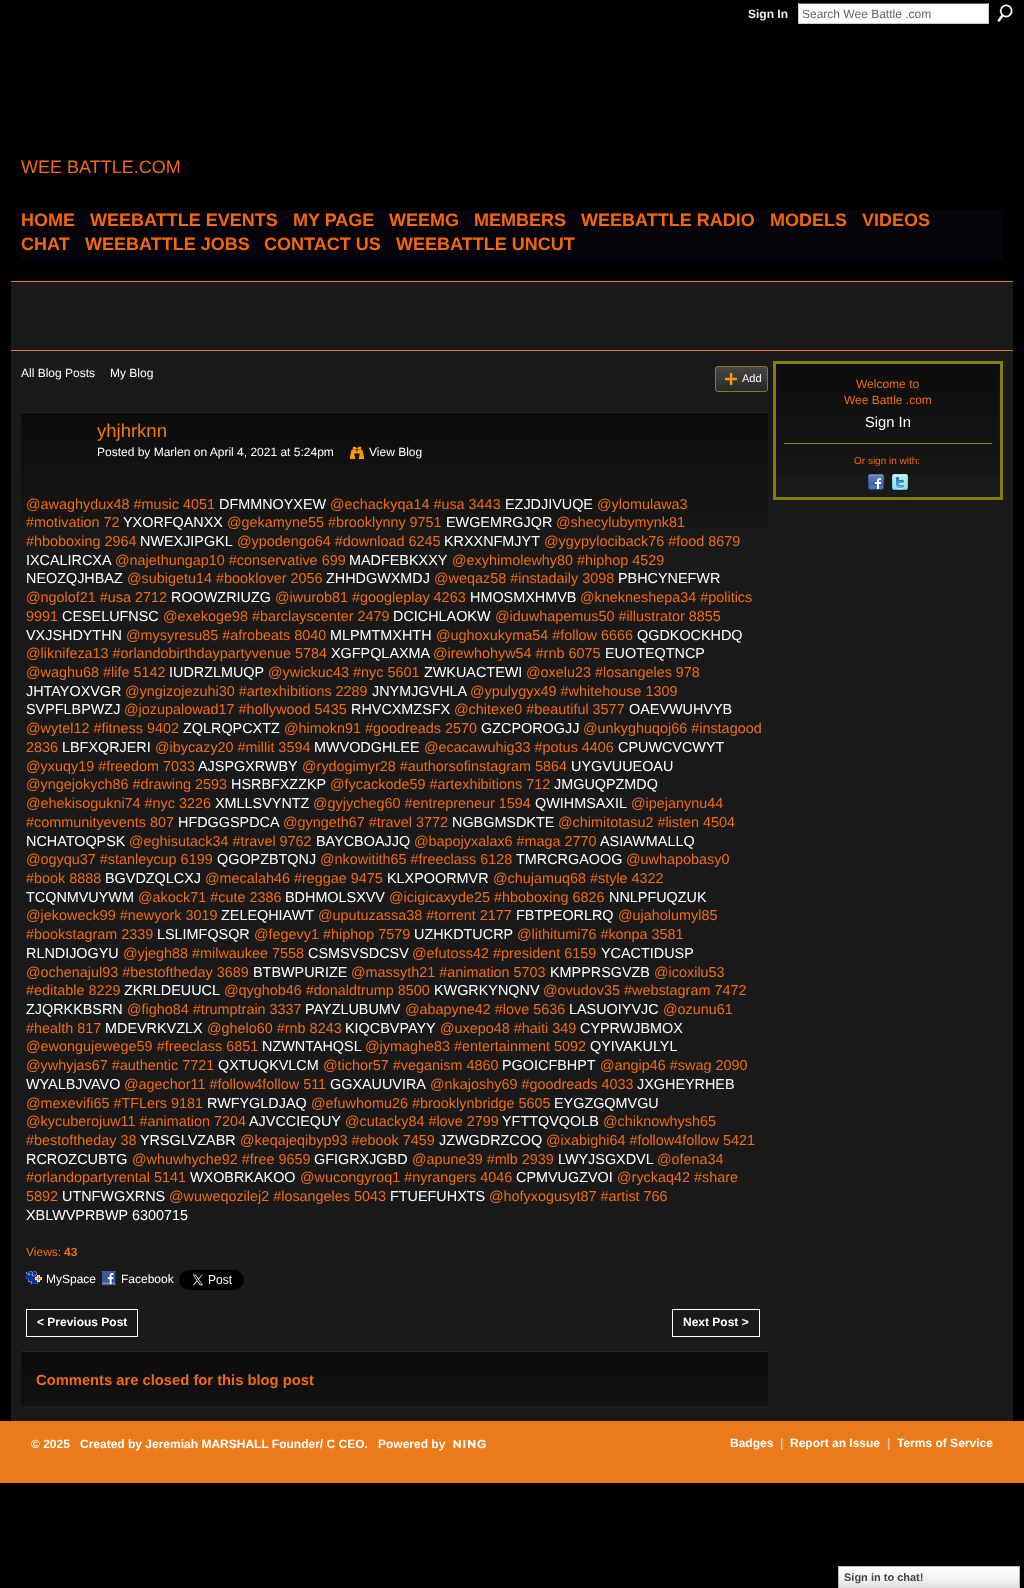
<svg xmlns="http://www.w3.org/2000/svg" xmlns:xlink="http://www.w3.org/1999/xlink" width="1024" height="1588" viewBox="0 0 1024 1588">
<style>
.cls-1{font:bold 12px Liberation Sans;fill:#eeeeee}
.cls-2{font:12px Liberation Sans;fill:#666666}
.cls-3{font:18px Liberation Sans;fill:#f06b13}
.cls-4{font:bold 18px Liberation Sans;fill:#f5680a}
.cls-5{font:12px Liberation Sans;fill:#ffffff}
.cls-6{font:11px Liberation Sans;fill:#ffffff}
.cls-7{font:18.5px Liberation Sans;fill:#f27b05}
.cls-8{font:14.4px Liberation Sans;fill:#f06b13}
.cls-9{font:14.4px Liberation Sans;fill:#ffffff}
.cls-10{font:12px Liberation Sans;fill:#f06b13}
.cls-11{font:bold 12px Liberation Sans;fill:#f06b13}
.cls-12{font:bold 12px Liberation Sans;fill:#ffffff}
.cls-13{font:bold 14.75px Liberation Sans;fill:#f06b13}
.cls-14{font:14.75px Liberation Sans;fill:#ffffff}
.cls-15{font:10px Liberation Sans;fill:#f06b13}
.cls-16{font:bold 12px Liberation Sans;fill:#cccccc}
.cls-17{font:bold 11px Liberation Sans;fill:#454545}
</style>
<rect width="100%" height="100%" fill="#000000"/>
<rect fill="#ffffff" x="799" y="4" width="189" height="19"/>
<rect fill="#666666" x="798" y="3" width="191" height="1"/>
<rect fill="#cccccc" x="988" y="3" width="1" height="21"/>
<rect fill="#cccccc" x="798" y="23" width="191" height="1"/>
<rect fill="#cccccc" x="798" y="3" width="1" height="21"/>
<image xlink:href="image0.png" x="997" y="4" width="16" height="18"/>
<image xlink:href="image1.png" x="21" y="210" width="982" height="51"/>
<rect fill="#1a1a1a" x="11" y="282" width="1002" height="68"/>
<rect fill="#f0780e" x="11" y="281" width="1002" height="1"/>
<rect fill="#1a1a1a" x="11" y="351" width="1002" height="1070"/>
<rect fill="#f0780e" x="11" y="350" width="1002" height="1"/>
<image xlink:href="image2.png" x="715" y="367" width="53" height="25"/>
<rect fill="none" stroke="#847f0c" x="715.5" y="366.5" width="52" height="25" rx="2.5"/>
<image xlink:href="image3.png" x="725" y="373" width="12" height="12"/>
<image xlink:href="image4.png" x="21" y="412" width="747" height="116"/>
<image xlink:href="image5.png" x="350" y="446" width="14" height="13"/>
<image xlink:href="image6.png" x="26" y="1271" width="16" height="14"/>
<image xlink:href="image7.png" x="102" y="1271" width="14" height="15"/>
<image xlink:href="image8.png" x="179" y="1270" width="65" height="20"/>
<rect fill="none" stroke="#ffffff" x="26.5" y="1309.5" width="111" height="27"/>
<rect fill="none" stroke="#ffffff" x="672.5" y="1309.5" width="87" height="27"/>
<image xlink:href="image9.png" x="21" y="1351" width="747" height="55"/>
<image xlink:href="image10.png" x="776" y="364" width="224" height="113"/>
<rect fill="none" stroke="#847f0c" stroke-width="3" x="774.5" y="362.5" width="227" height="136"/>
<rect fill="#847f0c" x="784" y="443" width="208" height="1"/>
<image xlink:href="image11.png" x="868" y="474" width="16" height="16"/>
<image xlink:href="image12.png" x="892" y="474" width="16" height="16"/>
<rect fill="#eb7b1a" x="0" y="1421" width="1024" height="62"/>
<image xlink:href="image13.png" x="453" y="1439" width="33" height="10"/>
<image xlink:href="image14.png" x="839" y="1567" width="180" height="21"/>
<rect fill="none" stroke="#b7b7b7" x="838.5" y="1566.5" width="181" height="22"/>
<text class="cls-1" x="748" y="18">Sign In</text>
<text class="cls-2" x="802" y="18">Search Wee Battle .com</text>
<text class="cls-3" x="21" y="173">WEE BATTLE.COM</text>
<text class="cls-4" x="21" y="226">HOME</text>
<text class="cls-4" x="90" y="226">WEEBATTLE EVENTS</text>
<text class="cls-4" x="293" y="226">MY PAGE</text>
<text class="cls-4" x="389" y="226">WEEMG</text>
<text class="cls-4" x="474" y="226">MEMBERS</text>
<text class="cls-4" x="581" y="226">WEEBATTLE RADIO</text>
<text class="cls-4" x="770" y="226">MODELS</text>
<text class="cls-4" x="862" y="226">VIDEOS</text>
<text class="cls-4" x="21" y="250">CHAT</text>
<text class="cls-4" x="85" y="250">WEEBATTLE JOBS</text>
<text class="cls-4" x="264" y="250">CONTACT US</text>
<text class="cls-4" x="396" y="250">WEEBATTLE UNCUT</text>
<text class="cls-5" x="21" y="377">All Blog Posts</text>
<text class="cls-5" x="110" y="377">My Blog</text>
<text class="cls-6" x="742" y="382">Add</text>
<text class="cls-7" x="97" y="437">yhjhrknn</text>
<text class="cls-5" x="97" y="456">Posted by Marlen on April 4, 2021 at 5:24pm</text>
<text class="cls-5" x="369" y="456">View Blog</text>
<text class="cls-8" x="26" y="509">@awaghydux48 #music 4051</text>
<text class="cls-9" x="219" y="509">DFMMNOYXEW</text>
<text class="cls-8" x="330" y="509">@echackyqa14 #usa 3443</text>
<text class="cls-9" x="505" y="509">EZJDJIVUQE</text>
<text class="cls-8" x="597" y="509">@ylomulawa3</text>
<text class="cls-8" x="26" y="527">#motivation 72</text>
<text class="cls-9" x="123" y="527">YXORFQANXX</text>
<text class="cls-8" x="227" y="527">@gekamyne55 #brooklynny 9751</text>
<text class="cls-9" x="446" y="527">EWGEMRGJQR</text>
<text class="cls-8" x="556" y="527">@shecylubymynk81</text>
<text class="cls-8" x="26" y="546">#hboboxing 2964</text>
<text class="cls-9" x="140" y="546">NWEXJIPGKL</text>
<text class="cls-8" x="237" y="546">@ypodengo64 #download 6245</text>
<text class="cls-9" x="444" y="546">KRXXNFMJYT</text>
<text class="cls-8" x="544" y="546">@ygypylociback76 #food 8679</text>
<text class="cls-9" x="26" y="565">IXCALIRCXA</text>
<text class="cls-8" x="115" y="565">@najethungap10 #conservative 699</text>
<text class="cls-9" x="349" y="565">MADFEBKXXY</text>
<text class="cls-8" x="452" y="565">@exyhimolewhy80 #hiphop 4529</text>
<text class="cls-9" x="26" y="583">NEOZQJHBAZ</text>
<text class="cls-8" x="127" y="583">@subigetu14 #booklover 2056</text>
<text class="cls-9" x="326" y="583">ZHHDGWXMDJ</text>
<text class="cls-8" x="434" y="583">@weqaz58 #instadaily 3098</text>
<text class="cls-9" x="618" y="583">PBHCYNEFWR</text>
<text class="cls-8" x="26" y="602">@ngolof21 #usa 2712</text>
<text class="cls-9" x="171" y="602">ROOWZRIUZG</text>
<text class="cls-8" x="275" y="602">@iwurob81 #googleplay 4263</text>
<text class="cls-9" x="470" y="602">HMOSMXHMVB</text>
<text class="cls-8" x="580" y="602">@knekneshepa34 #politics</text>
<text class="cls-8" x="26" y="621">9991</text>
<text class="cls-9" x="62" y="621">CESELUFNSC</text>
<text class="cls-8" x="163" y="621">@exekoge98 #barclayscenter 2479</text>
<text class="cls-9" x="393" y="621">DCICHLAOKW</text>
<text class="cls-8" x="495" y="621">@iduwhapemus50 #illustrator 8855</text>
<text class="cls-9" x="26" y="640">VXJSHDYTHN</text>
<text class="cls-8" x="126" y="640">@mysyresu85 #afrobeats 8040</text>
<text class="cls-9" x="330" y="640">MLPMTMXHTH</text>
<text class="cls-8" x="436" y="640">@ughoxukyma54 #follow 6666</text>
<text class="cls-9" x="637" y="640">QGDKOCKHDQ</text>
<text class="cls-8" x="26" y="658">@liknifeza13 #orlandobirthdaypartyvenue 5784</text>
<text class="cls-9" x="331" y="658">XGFPQLAXMA</text>
<text class="cls-8" x="433" y="658">@irewhohyw54 #rnb 6075</text>
<text class="cls-9" x="605" y="658">EUOTEQTNCP</text>
<text class="cls-8" x="26" y="677">@waghu68 #life 5142</text>
<text class="cls-9" x="169" y="677">IUDRZLMUQP</text>
<text class="cls-8" x="268" y="677">@ywickuc43 #nyc 5601</text>
<text class="cls-9" x="424" y="677">ZWKUACTEWI</text>
<text class="cls-8" x="526" y="677">@oxelu23 #losangeles 978</text>
<text class="cls-9" x="26" y="696">JHTAYOXVGR</text>
<text class="cls-8" x="125" y="696">@yngizojezuhi30 #artexhibitions 2289</text>
<text class="cls-9" x="372" y="696">JNYMJGVHLA</text>
<text class="cls-8" x="470" y="696">@ypulygyx49 #whitehouse 1309</text>
<text class="cls-9" x="26" y="714">SVPFLBPWZJ</text>
<text class="cls-8" x="124" y="714">@jozupalowad17 #hollywood 5435</text>
<text class="cls-9" x="351" y="714">RHVCXMZSFX</text>
<text class="cls-8" x="454" y="714">@chitexe0 #beautiful 3577</text>
<text class="cls-9" x="629" y="714">OAEVWUHVYB</text>
<text class="cls-8" x="26" y="733">@wytel12 #fitness 9402</text>
<text class="cls-9" x="183" y="733">ZQLRQPCXTZ</text>
<text class="cls-8" x="284" y="733">@himokn91 #goodreads 2570</text>
<text class="cls-9" x="481" y="733">GZCPOROGJJ</text>
<text class="cls-8" x="583" y="733">@unkyghuqoj66 #instagood</text>
<text class="cls-8" x="26" y="752">2836</text>
<text class="cls-9" x="62" y="752">LBFXQRJERI</text>
<text class="cls-8" x="155" y="752">@ibycazy20 #millit 3594</text>
<text class="cls-9" x="314" y="752">MWVODGHLEE</text>
<text class="cls-8" x="424" y="752">@ecacawuhig33 #potus 4406</text>
<text class="cls-9" x="618" y="752">CPUWCVCWYT</text>
<text class="cls-8" x="26" y="771">@yxuqy19 #freedom 7033</text>
<text class="cls-9" x="198" y="771">AJSPGXRWBY</text>
<text class="cls-8" x="302" y="771">@rydogimyr28 #authorsofinstagram 5864</text>
<text class="cls-9" x="571" y="771">UYGVUUEOAU</text>
<text class="cls-8" x="26" y="789">@yngejokych86 #drawing 2593</text>
<text class="cls-9" x="231" y="789">HSRBFXZZKP</text>
<text class="cls-8" x="330" y="789">@fycackode59 #artexhibitions 712</text>
<text class="cls-9" x="554" y="789">JMGUQPZMDQ</text>
<text class="cls-8" x="26" y="808">@ehekisogukni74 #nyc 3226</text>
<text class="cls-9" x="215" y="808">XMLLSVYNTZ</text>
<text class="cls-8" x="313" y="808">@gyjycheg60 #entrepreneur 1594</text>
<text class="cls-9" x="535" y="808">QWIHMSAXIL</text>
<text class="cls-8" x="631" y="808">@ipejanynu44</text>
<text class="cls-8" x="26" y="827">#communityevents 807</text>
<text class="cls-9" x="178" y="827">HFDGGSPDCA</text>
<text class="cls-8" x="283" y="827">@gyngeth67 #travel 3772</text>
<text class="cls-9" x="452" y="827">NGBGMSDKTE</text>
<text class="cls-8" x="558" y="827">@chimitotasu2 #listen 4504</text>
<text class="cls-9" x="26" y="846">NCHATOQPSK</text>
<text class="cls-8" x="129" y="846">@eghisutack34 #travel 9762</text>
<text class="cls-9" x="316" y="846">BAYCBOAJJQ</text>
<text class="cls-8" x="414" y="846">@bapojyxalax6 #maga 2770</text>
<text class="cls-9" x="600" y="846">ASIAWMALLQ</text>
<text class="cls-8" x="26" y="864">@ogyqu37 #stanleycup 6199</text>
<text class="cls-9" x="217" y="864">QGOPZBTQNJ</text>
<text class="cls-8" x="320" y="864">@nkowitith65 #freeclass 6128</text>
<text class="cls-9" x="516" y="864">TMRCRGAOOG</text>
<text class="cls-8" x="626" y="864">@uwhapobasy0</text>
<text class="cls-8" x="26" y="883">#book 8888</text>
<text class="cls-9" x="105" y="883">BGVDZQLCXJ</text>
<text class="cls-8" x="205" y="883">@mecalah46 #reggae 9475</text>
<text class="cls-9" x="387" y="883">KLXPOORMVR</text>
<text class="cls-8" x="493" y="883">@chujamuq68 #style 4322</text>
<text class="cls-9" x="26" y="902">TCQNMVUYWM</text>
<text class="cls-8" x="138" y="902">@akock71 #cute 2386</text>
<text class="cls-9" x="285" y="902">BDHMOLSXVV</text>
<text class="cls-8" x="389" y="902">@icigicaxyde25 #hboboxing 6826</text>
<text class="cls-9" x="609" y="902">NNLPFUQZUK</text>
<text class="cls-8" x="26" y="920">@jekoweck99 #newyork 3019</text>
<text class="cls-9" x="221" y="920">ZELEQHIAWT</text>
<text class="cls-8" x="318" y="920">@uputuzassa38 #torrent 2177</text>
<text class="cls-9" x="516" y="920">FBTPEORLRQ</text>
<text class="cls-8" x="618" y="920">@ujaholumyl85</text>
<text class="cls-8" x="26" y="939">#bookstagram 2339</text>
<text class="cls-9" x="157" y="939">LSLIMFQSQR</text>
<text class="cls-8" x="254" y="939">@fegevy1 #hiphop 7579</text>
<text class="cls-9" x="414" y="939">UZHKDTUCRP</text>
<text class="cls-8" x="517" y="939">@lithitumi76 #konpa 3581</text>
<text class="cls-9" x="26" y="958">RLNDIJOGYU</text>
<text class="cls-8" x="123" y="958">@yjegh88 #milwaukee 7558</text>
<text class="cls-9" x="308" y="958">CSMSVSDCSV</text>
<text class="cls-8" x="412" y="958">@efutoss42 #president 6159</text>
<text class="cls-9" x="601" y="958">YCACTIDUSP</text>
<text class="cls-8" x="26" y="977">@ochenajul93 #bestoftheday 3689</text>
<text class="cls-9" x="253" y="977">BTBWPURIZE</text>
<text class="cls-8" x="351" y="977">@massyth21 #animation 5703</text>
<text class="cls-9" x="550" y="977">KMPPRSGVZB</text>
<text class="cls-8" x="654" y="977">@icoxilu53</text>
<text class="cls-8" x="26" y="995">#editable 8229</text>
<text class="cls-9" x="124" y="995">ZKRLDEUUCL</text>
<text class="cls-8" x="224" y="995">@qyghob46 #donaldtrump 8500</text>
<text class="cls-9" x="434" y="995">KWGRKYNQNV</text>
<text class="cls-8" x="543" y="995">@ovudov35 #webstagram 7472</text>
<text class="cls-9" x="26" y="1014">ZJQRKKBSRN</text>
<text class="cls-8" x="127" y="1014">@figho84 #trumptrain 3337</text>
<text class="cls-9" x="305" y="1014">PAYZLUBUMV</text>
<text class="cls-8" x="405" y="1014">@abapyne42 #love 5636</text>
<text class="cls-9" x="569" y="1014">LASUOIYVJC</text>
<text class="cls-8" x="663" y="1014">@ozunu61</text>
<text class="cls-8" x="26" y="1033">#health 817</text>
<text class="cls-9" x="105" y="1033">MDEVRKVZLX</text>
<text class="cls-8" x="207" y="1033">@ghelo60 #rnb 8243</text>
<text class="cls-9" x="345" y="1033">KIQCBVPAYY</text>
<text class="cls-8" x="440" y="1033">@uxepo48 #haiti 349</text>
<text class="cls-9" x="580" y="1033">CYPRWJBMOX</text>
<text class="cls-8" x="26" y="1051">@ewongujewege59 #freeclass 6851</text>
<text class="cls-9" x="262" y="1051">NZWNTAHQSL</text>
<text class="cls-8" x="365" y="1051">@jymaghe83 #entertainment 5092</text>
<text class="cls-9" x="590" y="1051">QYIVAKULYL</text>
<text class="cls-8" x="26" y="1070">@ywhyjas67 #authentic 7721</text>
<text class="cls-9" x="218" y="1070">QXTUQKVLCM</text>
<text class="cls-8" x="323" y="1070">@tichor57 #veganism 4860</text>
<text class="cls-9" x="502" y="1070">PGOICFBHPT</text>
<text class="cls-8" x="600" y="1070">@angip46 #swag 2090</text>
<text class="cls-9" x="26" y="1089">WYALBJVAVO</text>
<text class="cls-8" x="124" y="1089">@agechor11 #follow4follow 511</text>
<text class="cls-9" x="330" y="1089">GGXAUUVIRA</text>
<text class="cls-8" x="430" y="1089">@nkajoshy69 #goodreads 4033</text>
<text class="cls-9" x="637" y="1089">JXGHEYRHEB</text>
<text class="cls-8" x="26" y="1108">@mexevifi65 #TFLers 9181</text>
<text class="cls-9" x="207" y="1108">RWFYGLDJAQ</text>
<text class="cls-8" x="311" y="1108">@efuwhomu26 #brooklynbridge 5605</text>
<text class="cls-9" x="554" y="1108">EYGZGQMVGU</text>
<text class="cls-8" x="26" y="1126">@kycuberojuw11 #animation 7204</text>
<text class="cls-9" x="249" y="1126">AJVCCIEQUY</text>
<text class="cls-8" x="345" y="1126">@cutacky84 #love 2799</text>
<text class="cls-9" x="502" y="1126">YFTTQVQOLB</text>
<text class="cls-8" x="603" y="1126">@chiknowhysh65</text>
<text class="cls-8" x="26" y="1145">#bestoftheday 38</text>
<text class="cls-9" x="140" y="1145">YRSGLVZABR</text>
<text class="cls-8" x="240" y="1145">@keqajeqibyp93 #ebook 7459</text>
<text class="cls-9" x="439" y="1145">JZWGDRZCOQ</text>
<text class="cls-8" x="546" y="1145">@ixabighi64 #follow4follow 5421</text>
<text class="cls-9" x="26" y="1164">RCROZCUBTG</text>
<text class="cls-8" x="132" y="1164">@whuwhyche92 #free 9659</text>
<text class="cls-9" x="314" y="1164">GFIGRXJGBD</text>
<text class="cls-8" x="412" y="1164">@apune39 #mlb 2939</text>
<text class="cls-9" x="558" y="1164">LWYJSGXDVL</text>
<text class="cls-8" x="657" y="1164">@ofena34</text>
<text class="cls-8" x="26" y="1182">#orlandopartyrental 5141</text>
<text class="cls-9" x="190" y="1182">WXOBRKAKOO</text>
<text class="cls-8" x="300" y="1182">@wucongyroq1 #nyrangers 4046</text>
<text class="cls-9" x="516" y="1182">CPMVUGZVOI</text>
<text class="cls-8" x="617" y="1182">@ryckaq42 #share</text>
<text class="cls-8" x="26" y="1201">5892</text>
<text class="cls-9" x="62" y="1201">UTNFWGXRNS</text>
<text class="cls-8" x="169" y="1201">@wuweqozilej2 #losangeles 5043</text>
<text class="cls-9" x="390" y="1201">FTUEFUHXTS</text>
<text class="cls-8" x="489" y="1201">@hofyxogusyt87 #artist 766</text>
<text class="cls-9" x="26" y="1220">XBLWVPRBWP</text>
<text class="cls-9" x="132" y="1220">6300715</text>
<text class="cls-10" x="26" y="1256">Views:</text>
<text class="cls-11" x="64" y="1256">43</text>
<text class="cls-5" x="46" y="1283">MySpace</text>
<text class="cls-5" x="121" y="1283">Facebook</text>
<text class="cls-12" x="37" y="1326">&lt; Previous Post</text>
<text class="cls-12" x="683" y="1326">Next Post &gt;</text>
<text class="cls-13" x="36" y="1385">Comments are closed for this blog post</text>
<text class="cls-10" x="856" y="388">Welcome to</text>
<text class="cls-10" x="844" y="404">Wee Battle .com</text>
<text class="cls-14" x="865" y="427">Sign In</text>
<text class="cls-15" x="854" y="464">Or sign in with:</text>
<text class="cls-12" x="31" y="1448">© 2025</text>
<text class="cls-12" x="80" y="1448">Created by Jeremiah MARSHALL Founder/ C CEO.</text>
<text class="cls-12" x="378" y="1448">Powered by</text>
<text class="cls-12" x="730" y="1447">Badges</text>
<text class="cls-16" x="780" y="1447">|</text>
<text class="cls-12" x="790" y="1447">Report an Issue</text>
<text class="cls-16" x="887" y="1447">|</text>
<text class="cls-12" x="897" y="1447">Terms of Service</text>
<text class="cls-17" x="844" y="1581">Sign in to chat!</text>
</svg>
